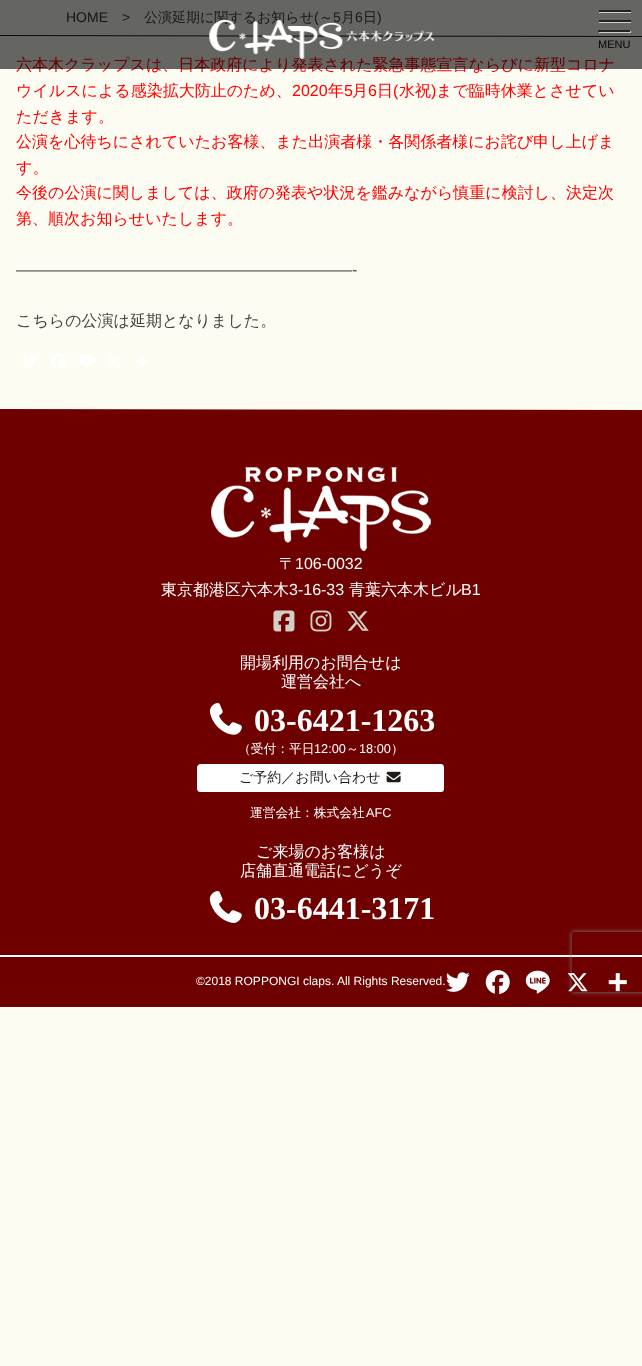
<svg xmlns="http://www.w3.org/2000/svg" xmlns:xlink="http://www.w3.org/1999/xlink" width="642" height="1366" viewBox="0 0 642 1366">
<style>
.cls-1{font:14px Liberation Sans;fill:#333333}
.cls-2{font:14px Liberation Sans;fill:#444444}
.cls-3{font:500 14px WenQuanYi Zen Hei;fill:#444444}
.cls-4{font:500 16px WenQuanYi Zen Hei;fill:#ff0000}
.cls-5{font:16px Liberation Sans;fill:#ff0000}
.cls-6{font:16px Liberation Sans;fill:#444444}
.cls-7{font:500 16px WenQuanYi Zen Hei;fill:#444444}
.cls-8{font:11px Liberation Sans;fill:#000000}
.cls-9{font:500 16px WenQuanYi Zen Hei;fill:#ffffff}
.cls-10{font:16px Liberation Sans;fill:#ffffff}
.cls-11{font:bold 32px Liberation Serif;fill:#ffffff}
.cls-12{font:500 12.75px WenQuanYi Zen Hei;fill:#ffffff}
.cls-13{font:12.75px Liberation Sans;fill:#ffffff}
.cls-14{font:500 14px WenQuanYi Zen Hei;fill:#1f1c18}
.cls-15{font:12px Liberation Sans;fill:#ffffff}
</style>
<defs>
<clipPath id="clip1"><path d="M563 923H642V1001H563ZM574 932H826C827 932 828 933 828 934L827.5 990C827.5 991 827 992 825.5 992H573.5C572.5 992 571.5 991 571.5 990L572 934C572 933 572.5 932 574 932Z" clip-rule="evenodd"/></clipPath>
</defs>
<rect width="100%" height="100%" fill="#fcfcf3"/>
<path fill="#1f1c18" d="M0 35L642 36V37L0 36Z"/>
<image xlink:href="image1.png" x="23" y="355" width="14" height="12"/>
<image xlink:href="image2.png" x="50" y="353" width="16" height="15"/>
<image xlink:href="image3.png" x="78" y="354" width="16" height="14"/>
<image xlink:href="image4.png" x="108" y="355" width="12" height="12"/>
<rect fill="#ffffff" x="141" y="356" width="3" height="11"/>
<rect fill="#ffffff" x="137" y="360" width="11" height="2"/>
<path fill="#6f0000" d="M0 409L642 410V1007H0Z"/>
<image xlink:href="image5.png" x="211" y="466" width="220" height="85"/>
<image xlink:href="image6.png" x="273" y="610" width="22" height="22"/>
<image xlink:href="image7.png" x="310" y="610" width="22" height="22"/>
<image xlink:href="image8.png" x="347" y="611" width="22" height="20"/>
<image xlink:href="image9.png" x="209" y="703" width="33" height="32"/>
<path fill="#ffffff" d="M200 764H441C443 764 444 766 444 767V789C444 791 443 792 441 792H200C199 792 197 791 197 789V767C197 766 199 764 200 764Z"/>
<image xlink:href="image10.png" x="386" y="771" width="15" height="12"/>
<image xlink:href="image11.png" x="209" y="891" width="33" height="32"/>
<rect fill="#ffffff" x="0" y="955" width="642" height="2"/>
<g clip-path="url(#clip1)">
<rect fill="#808080" filter="blur(2.5px)" x="572" y="932" width="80" height="60" rx="2"/>
</g>
<image xlink:href="image12.png" x="446" y="972" width="24" height="20"/>
<image xlink:href="image13.png" x="485" y="970" width="25" height="24"/>
<image xlink:href="image14.png" x="525" y="970" width="25" height="24"/>
<image xlink:href="image15.png" x="567" y="973" width="21" height="19"/>
<image xlink:href="image16.png" x="608" y="973" width="19" height="19"/>
<text class="cls-1" x="66" y="22">HOME</text>
<text class="cls-2" x="122" y="22">&gt;</text>
<text class="cls-3" x="144" y="22">公演延期に関するお知らせ</text>
<text class="cls-2" x="314" y="22">(</text>
<text class="cls-3" x="319" y="22">～</text>
<text class="cls-2" x="333" y="22">5</text>
<text class="cls-3" x="341" y="22">月</text>
<text class="cls-2" x="355" y="22">6</text>
<text class="cls-3" x="363" y="22">日</text>
<text class="cls-2" x="377" y="22">)</text>
<text class="cls-4" x="16" y="70">六本木クラップスは、日本政府により発表された緊急事態宣言ならびに新型コロナ</text>
<rect fill="#000000" fill-opacity="0.6" x="0" y="0" width="642" height="69"/>
<image xlink:href="image0.png" x="209" y="20" width="226" height="39"/>
<text class="cls-4" x="16" y="96">ウイルスによる感染拡大防止のため、</text>
<text class="cls-5" x="292" y="96">2020</text>
<text class="cls-4" x="328" y="96">年</text>
<text class="cls-5" x="344" y="96">5</text>
<text class="cls-4" x="352" y="96">月</text>
<text class="cls-5" x="368" y="96">6</text>
<text class="cls-4" x="377" y="96">日</text>
<text class="cls-5" x="393" y="96">(</text>
<text class="cls-4" x="399" y="96">水祝</text>
<text class="cls-5" x="431" y="96">)</text>
<text class="cls-4" x="436" y="96">まで臨時休業とさせてい</text>
<text class="cls-4"><tspan x="16" y="122">ただきます。</tspan><tspan x="16" y="147">公演を心待ちにされていたお客様、また出演者様・各関係者様にお詫び申し上げま</tspan><tspan x="16" y="173">す。</tspan><tspan x="16" y="198">今後の公演に関しましては、政府の発表や状況を鑑みながら慎重に検討し、決定次</tspan><tspan x="16" y="224">第、順次お知らせいたします。</tspan></text>
<text class="cls-6" x="16" y="275">—————————————————————-</text>
<text class="cls-7" x="16" y="326">こちらの公演は延期となりました。</text>
<rect fill="#d2d0c4" filter="blur(0.5px)" x="599" y="21" width="32" height="2"/>
<rect fill="#222222" x="599" y="20" width="32" height="2"/>
<rect fill="#d2d0c4" filter="blur(0.5px)" x="599" y="11" width="32" height="2"/>
<rect fill="#222222" x="599" y="10" width="32" height="2"/>
<rect fill="#d2d0c4" filter="blur(0.5px)" x="599" y="31" width="32" height="2"/>
<rect fill="#222222" x="598" y="30" width="32" height="2"/>
<text class="cls-8" x="598" y="48">MENU</text>
<text class="cls-9" x="279" y="569">〒</text>
<text class="cls-10" x="295" y="569">106-0032</text>
<text class="cls-9" x="161" y="595">東京都港区六本木</text>
<text class="cls-10" x="289" y="595">3-16-33</text>
<text class="cls-9" x="349" y="595">青葉六本木ビル</text>
<text class="cls-10" x="461" y="595">B1</text>
<text class="cls-9" x="240" y="668">開場利用のお問合せは</text>
<text class="cls-9" x="281" y="687">運営会社へ</text>
<text class="cls-11" x="254" y="731">03-6421-1263</text>
<text class="cls-12" x="238" y="753">（受付：平日</text>
<text class="cls-13" x="314" y="753">12:00</text>
<text class="cls-12" x="346" y="753">～</text>
<text class="cls-13" x="359" y="753">18:00</text>
<text class="cls-12" x="391" y="753">）</text>
<text class="cls-14" x="239" y="782">ご予約／お問い合わせ</text>
<text class="cls-12" x="250" y="817">運営会社：株式会社</text>
<text class="cls-13" x="366" y="817">AFC</text>
<text class="cls-9" x="256" y="857">ご来場のお客様は</text>
<text class="cls-9" x="240" y="876">店舗直通電話にどうぞ</text>
<text class="cls-11" x="254" y="919">03-6441-3171</text>
<text class="cls-15" x="196" y="985">©2018 ROPPONGI claps. All Rights Reserved.</text>
</svg>
